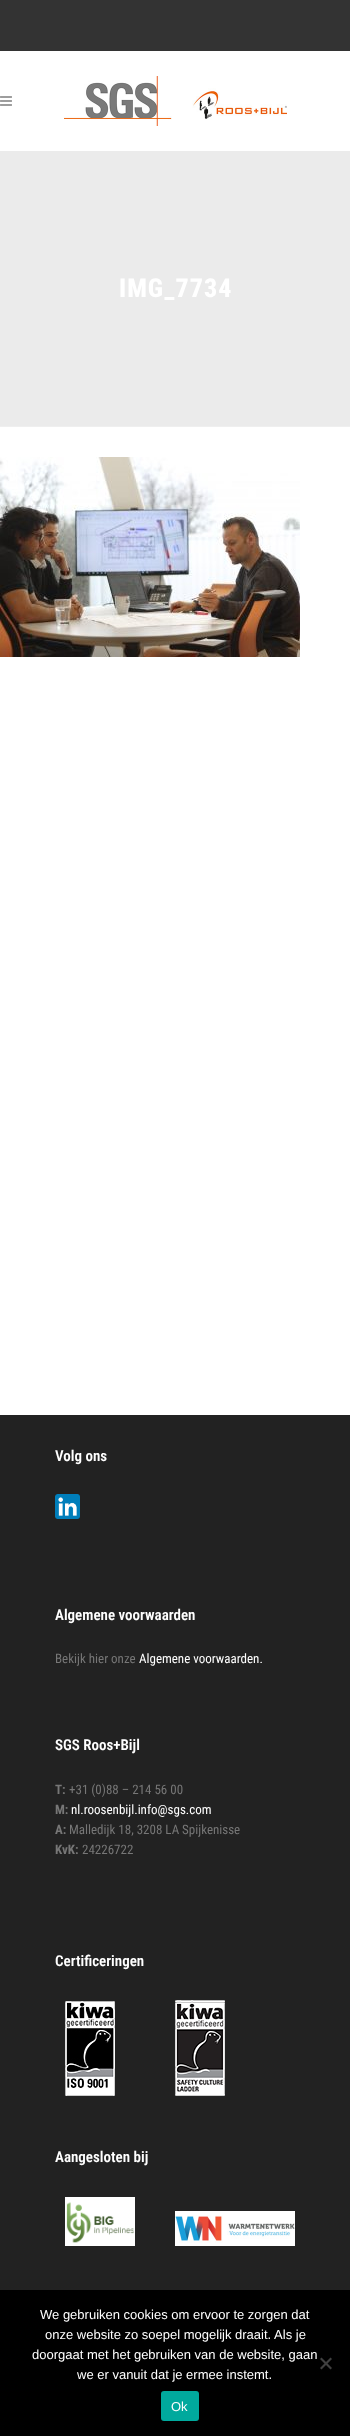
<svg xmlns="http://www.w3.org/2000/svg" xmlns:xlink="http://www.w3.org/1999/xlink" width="350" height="2436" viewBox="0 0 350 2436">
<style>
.cls-1{font:800 26px Roboto Condensed;letter-spacing:1px;fill:#ffffff}
.cls-2{font:600 15px Roboto Condensed;fill:#ffffff}
.cls-3{font:13px Roboto Condensed;fill:#777777}
.cls-4{font:13px Roboto Condensed;fill:#ffffff}
.cls-5{font:bold 13px Roboto Condensed;fill:#777777}
.cls-6{font:13px Liberation Sans;fill:#ffffff}
</style>
<rect width="100%" height="100%" fill="#ffffff"/>
<rect fill="#333333" x="0" y="0" width="350" height="51"/>
<image xlink:href="image0.png" x="0" y="96" width="12" height="10"/>
<image xlink:href="image1.png" x="64" y="76" width="223" height="50"/>
<rect fill="#efefef" x="0" y="426" width="350" height="1"/>
<rect fill="#ebebeb" x="0" y="151" width="350" height="275"/>
<image xlink:href="image2.png" x="0" y="457" width="300" height="200"/>
<rect fill="#222222" x="0" y="1415" width="350" height="875"/>
<image xlink:href="image3.png" x="55" y="1494" width="25" height="25"/>
<image xlink:href="image4.png" x="65" y="2001" width="50" height="95"/>
<image xlink:href="image5.png" x="175" y="2000" width="50" height="96"/>
<image xlink:href="image6.png" x="65" y="2197" width="70" height="49"/>
<image xlink:href="image7.png" x="175" y="2211" width="120" height="35"/>
<rect fill="#000000" x="0" y="2290" width="350" height="146"/>
<path fill="#404040" d="M330.5 2357.5L332 2359L321.5 2369.5L320 2368Z"/>
<path fill="#404040" d="M320 2359L321.5 2357.5L332 2368L330.5 2369.5Z"/>
<rect fill="#00a99d" x="161" y="2391" width="38" height="30" rx="3"/>
<text class="cls-1" x="119" y="297">IMG_7734</text>
<text class="cls-2" x="55" y="1461">Volg ons</text>
<text class="cls-2" x="55" y="1620">Algemene voorwaarden</text>
<text class="cls-3" x="55" y="1663">Bekijk hier onze</text>
<text class="cls-4" x="139" y="1663">Algemene voorwaarden.</text>
<text class="cls-2" x="55" y="1750">SGS Roos+Bijl</text>
<text class="cls-5" x="55" y="1794">T:</text>
<text class="cls-3" x="69" y="1794">+31 (0)88 – 214 56 00</text>
<text class="cls-5" x="55" y="1814">M:</text>
<text class="cls-4" x="71" y="1814">nl.roosenbijl.info@sgs.com</text>
<text class="cls-5" x="55" y="1834">A:</text>
<text class="cls-3" x="69" y="1834">Malledijk 18, 3208 LA Spijkenisse</text>
<text class="cls-5" x="55" y="1854">KvK:</text>
<text class="cls-3" x="82" y="1854">24226722</text>
<text class="cls-2" x="55" y="1966">Certificeringen</text>
<text class="cls-2" x="55" y="2162">Aangesloten bij</text>
<text class="cls-6" x="40" y="2319">We gebruiken cookies om ervoor te zorgen dat</text>
<text class="cls-6" x="45" y="2339">onze website zo soepel mogelijk draait. Als je</text>
<text class="cls-6" x="32" y="2359">doorgaat met het gebruiken van de website, gaan</text>
<text class="cls-6" x="77" y="2379">we er vanuit dat je ermee instemt.</text>
<text class="cls-6" x="171" y="2411">Ok</text>
</svg>
